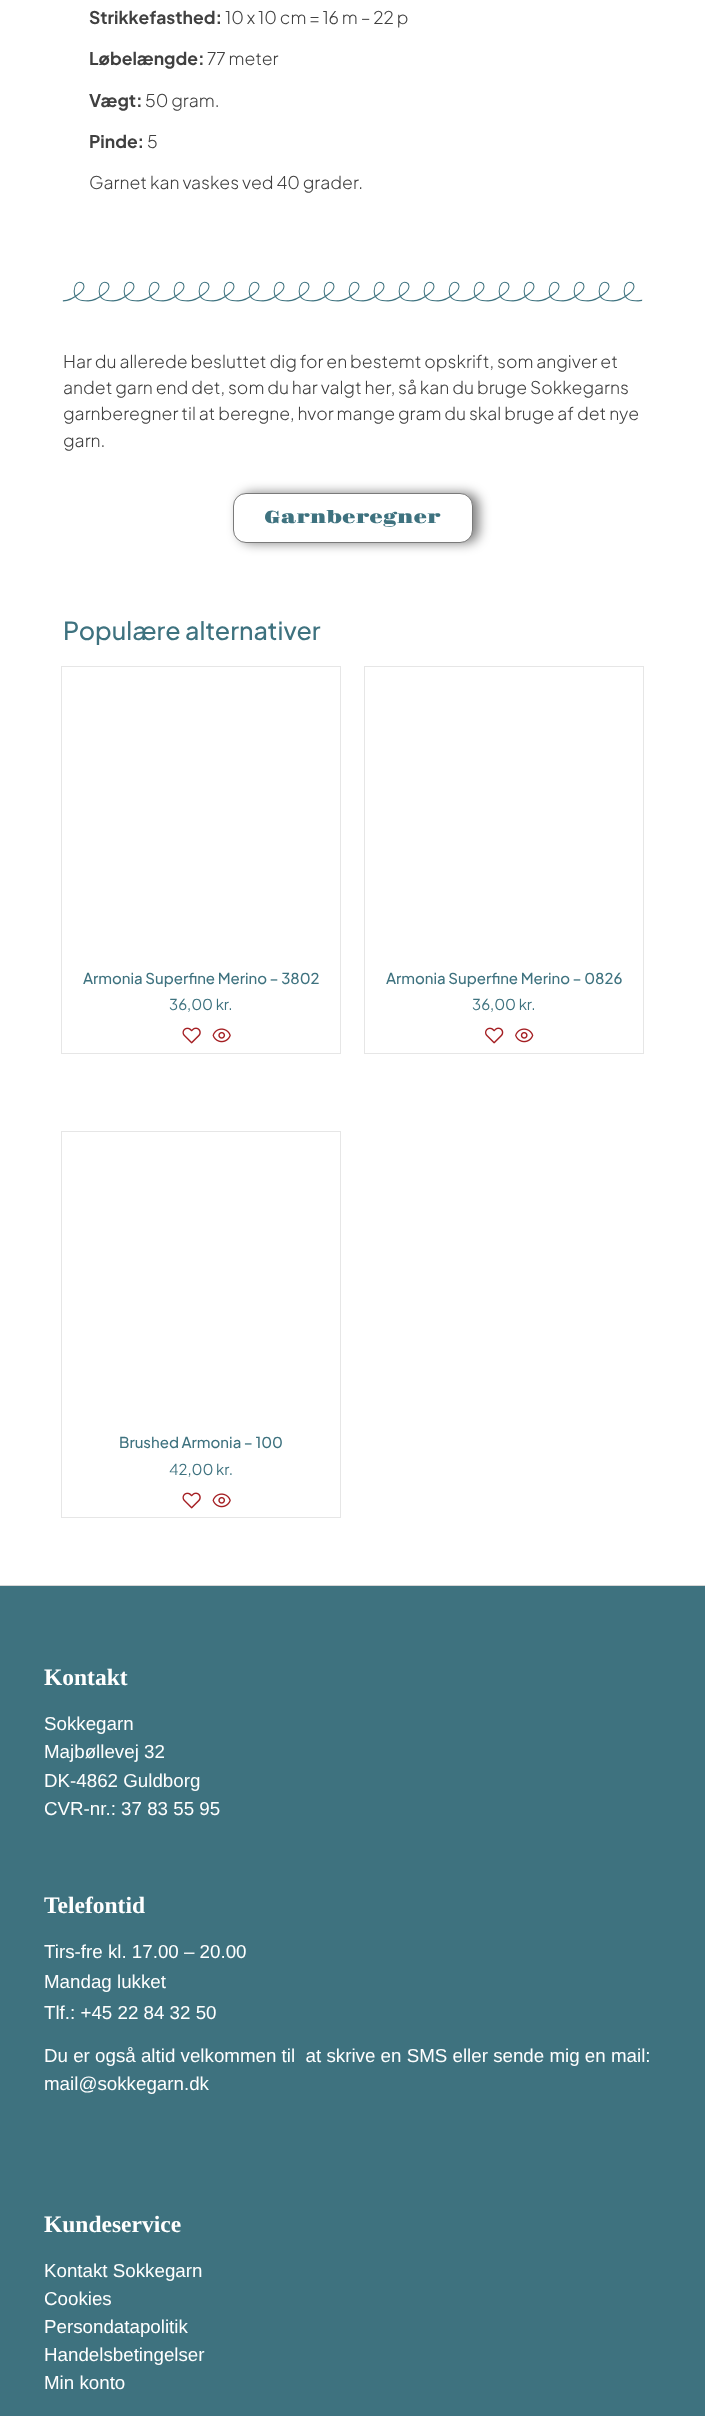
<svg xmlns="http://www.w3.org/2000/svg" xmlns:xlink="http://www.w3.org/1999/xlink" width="705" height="2416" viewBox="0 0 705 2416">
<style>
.cls-1{font:bold 17.5px Plus Jakarta Sans;fill:#404040}
.cls-2{font:300 17.5px Plus Jakarta Sans;fill:#404040}
.cls-3{font:17.5px Gravitas One;fill:#3e727f}
.cls-4{font:500 25px Plus Jakarta Sans;fill:#3e727f}
.cls-5{font:500 15px Plus Jakarta Sans;fill:#3e727f}
.cls-6{font:15px Plus Jakarta Sans;fill:#3e727f}
.cls-7{font:bold 23.5px Liberation Serif;fill:#ffffff}
.cls-8{font:18.75px Liberation Sans;fill:#ffffff}
</style>
<rect width="100%" height="100%" fill="#ffffff"/>
<image xlink:href="image0.png" x="62" y="281" width="581" height="21"/>
<rect fill="#000000" fill-opacity="0.5" filter="blur(6px)" x="239" y="493" width="240" height="50" rx="13"/>
<rect fill="#ffffff" stroke="#7a7a7a" x="233.5" y="493.5" width="239" height="49" rx="12.5"/>
<rect fill="none" stroke="#e6e6e6" x="61.5" y="666.5" width="279" height="387"/>
<image xlink:href="image1.png" x="182" y="1027" width="19" height="17"/>
<image xlink:href="image2.png" x="212" y="1028" width="19" height="15"/>
<rect fill="none" stroke="#e6e6e6" x="364.5" y="666.5" width="279" height="387"/>
<image xlink:href="image3.png" x="485" y="1027" width="19" height="17"/>
<image xlink:href="image4.png" x="515" y="1028" width="19" height="15"/>
<rect fill="none" stroke="#e6e6e6" x="61.5" y="1131.5" width="279" height="386"/>
<image xlink:href="image1.png" x="182" y="1492" width="19" height="17"/>
<image xlink:href="image2.png" x="212" y="1493" width="19" height="15"/>
<rect fill="#3e727f" x="0" y="1586" width="705" height="830"/>
<rect fill="#d7d7d7" x="0" y="1585" width="705" height="1"/>
<text class="cls-1" x="89" y="24">Strikkefasthed:</text>
<text class="cls-2" x="225" y="24">10 x 10 cm = 16 m – 22 p</text>
<text class="cls-1" x="89" y="65">Løbelængde:</text>
<text class="cls-2" x="207" y="65">77 meter</text>
<text class="cls-1" x="89" y="107">Vægt:</text>
<text class="cls-2" x="145" y="107">50 gram.</text>
<text class="cls-1" x="89" y="148">Pinde:</text>
<text class="cls-2" x="147" y="148">5</text>
<text class="cls-2" x="89" y="189">Garnet kan vaskes ved 40 grader.</text>
<text class="cls-2"><tspan x="63" y="368">Har du allerede besluttet dig for en bestemt opskrift, som angiver et</tspan><tspan x="63" y="394">andet garn end det, som du har valgt her, så kan du bruge Sokkegarns</tspan><tspan x="63" y="420">garnberegner til at beregne, hvor mange gram du skal bruge af det nye</tspan><tspan x="63" y="447">garn.</tspan></text>
<text class="cls-3" x="264" y="523">Garnberegner</text>
<text class="cls-4" x="63" y="640">Populære alternativer</text>
<text class="cls-5" x="83" y="984">Armonia Superfine Merino – 3802</text>
<text class="cls-6" x="169" y="1010">36,00 kr.</text>
<text class="cls-5" x="386" y="984">Armonia Superfine Merino – 0826</text>
<text class="cls-6" x="472" y="1010">36,00 kr.</text>
<text class="cls-5" x="119" y="1448">Brushed Armonia – 100</text>
<text class="cls-6" x="169" y="1475">42,00 kr.</text>
<text class="cls-7" x="44" y="1685">Kontakt</text>
<text class="cls-8"><tspan x="44" y="1730">Sokkegarn</tspan><tspan x="44" y="1758">Majbøllevej 32</tspan><tspan x="44" y="1787">DK-4862 Guldborg</tspan><tspan x="44" y="1815">CVR-nr.: 37 83 55 95</tspan></text>
<text class="cls-7" x="44" y="1913">Telefontid</text>
<text class="cls-8"><tspan x="44" y="1958">Tirs-fre kl. 17.00 – 20.00</tspan><tspan x="44" y="1988">Mandag lukket</tspan><tspan x="44" y="2019">Tlf.: +45 22 84 32 50</tspan></text>
<text class="cls-8" xml:space="preserve"><tspan x="44" y="2062">Du er også altid velkommen til  at skrive en SMS eller sende mig en mail:</tspan><tspan x="44" y="2090">mail@sokkegarn.dk</tspan></text>
<text class="cls-7" x="44" y="2232">Kundeservice</text>
<text class="cls-8"><tspan x="44" y="2277">Kontakt Sokkegarn</tspan><tspan x="44" y="2305">Cookies</tspan><tspan x="44" y="2333">Persondatapolitik</tspan><tspan x="44" y="2361">Handelsbetingelser</tspan><tspan x="44" y="2389">Min konto</tspan></text>
</svg>
